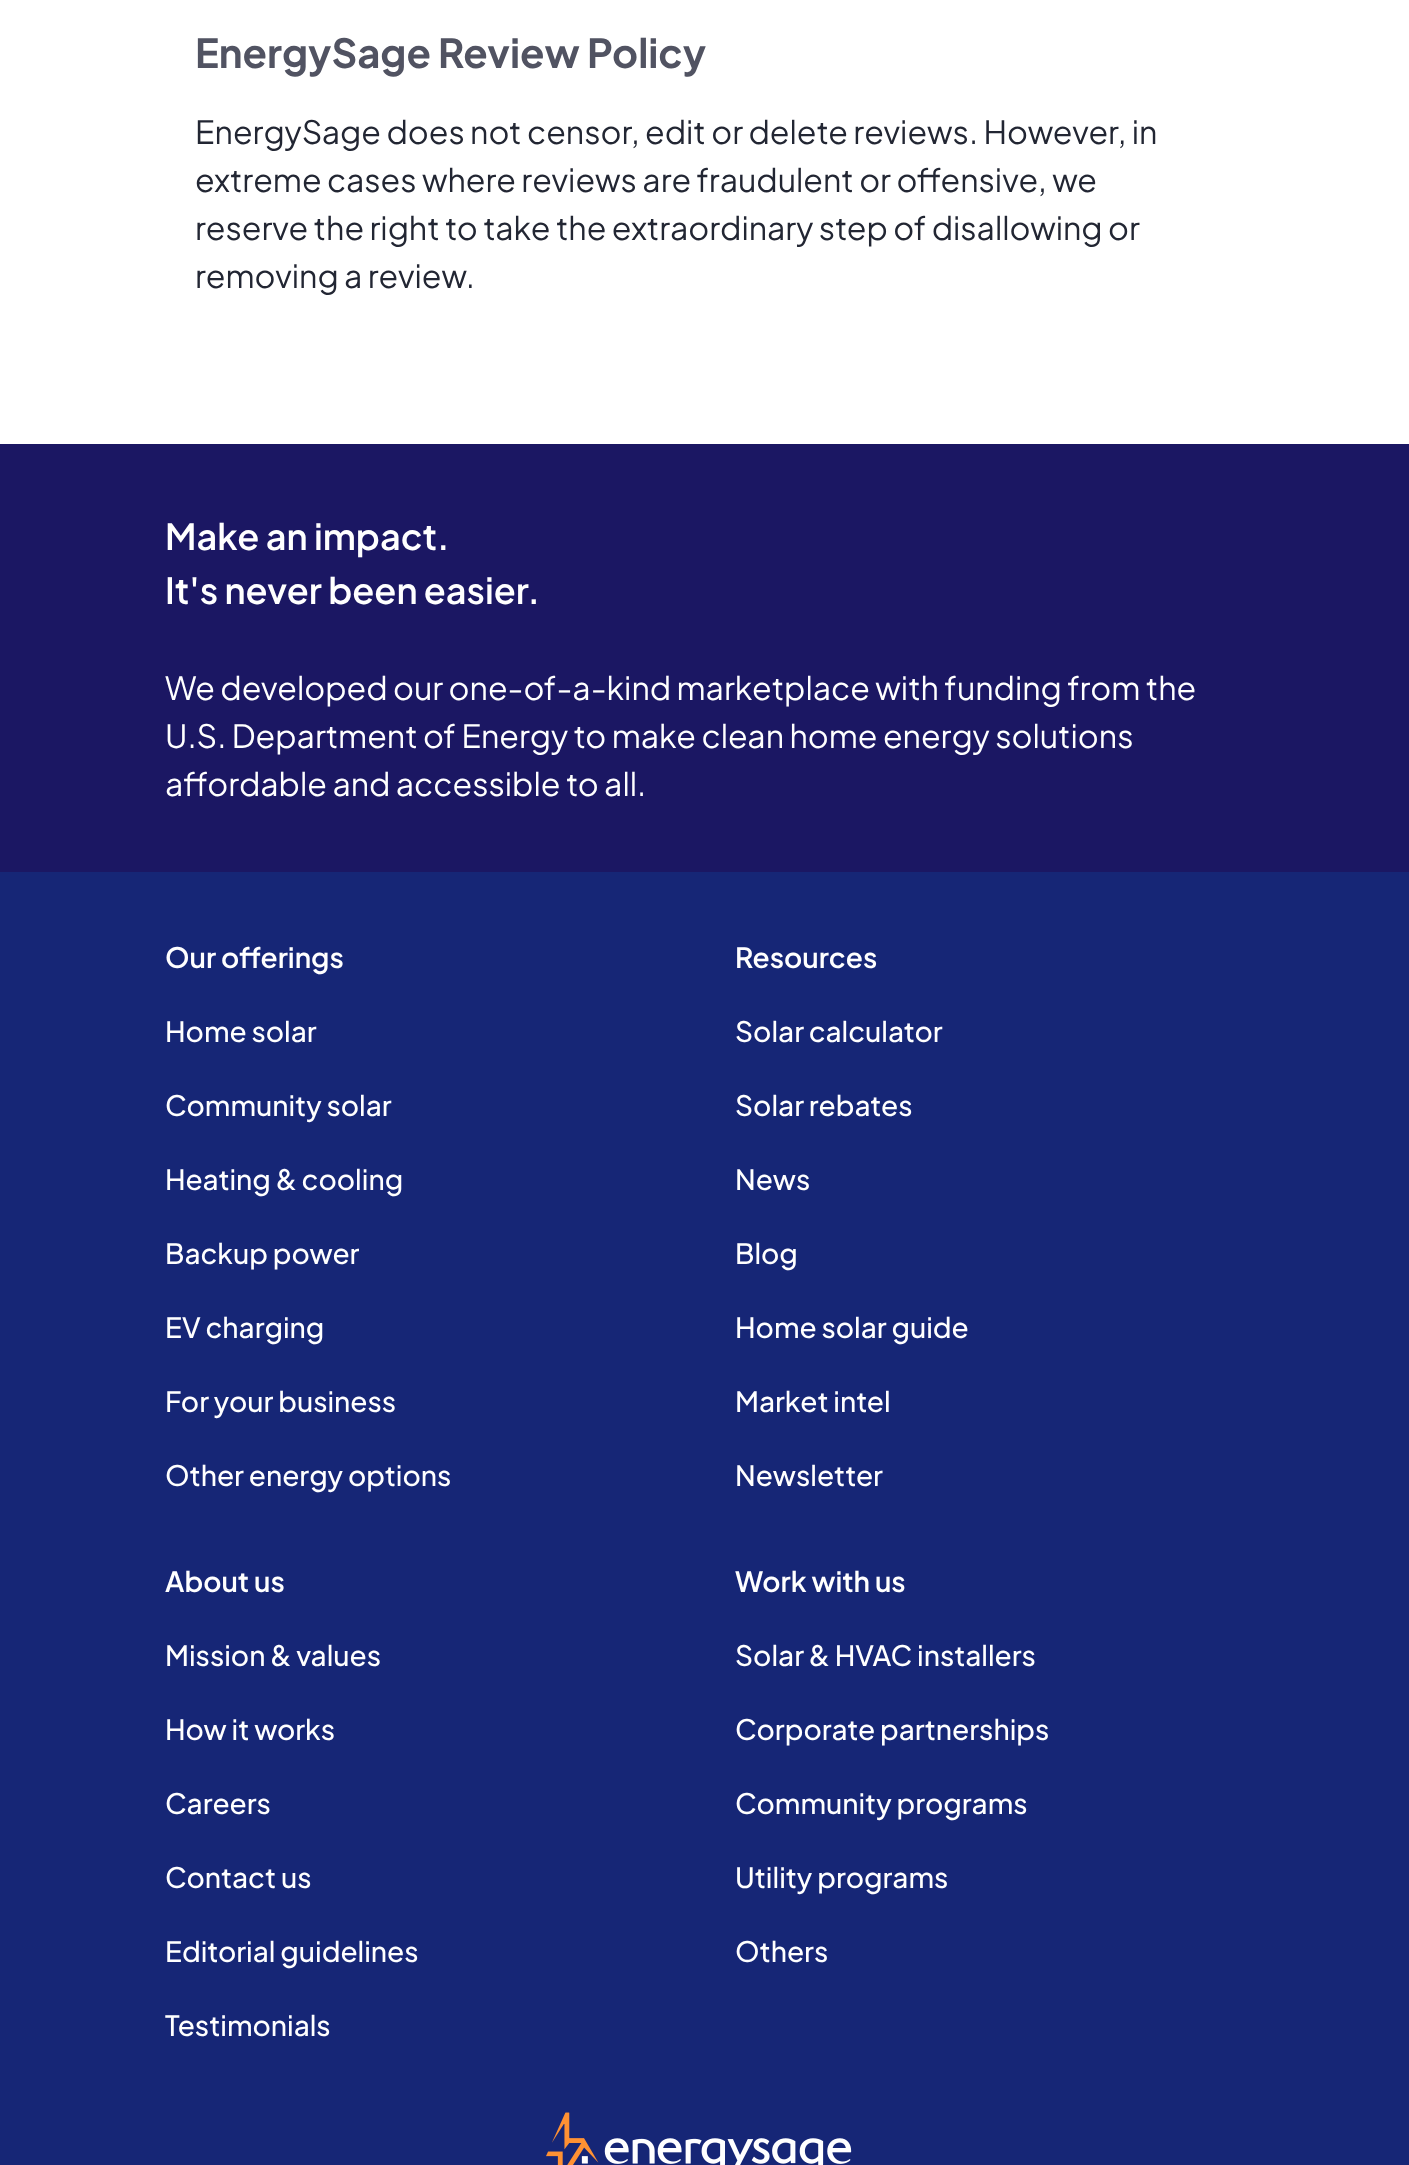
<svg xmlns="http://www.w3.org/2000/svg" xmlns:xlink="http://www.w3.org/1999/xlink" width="1409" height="2165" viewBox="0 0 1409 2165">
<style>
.cls-1{font:bold 40px Plus Jakarta Sans;fill:#515362}
.cls-2{font:32px Plus Jakarta Sans;fill:#222633}
.cls-3{font:600 36px Plus Jakarta Sans;fill:#ffffff}
.cls-4{font:32px Plus Jakarta Sans;fill:#ffffff}
.cls-5{font:600 28px Plus Jakarta Sans;fill:#ffffff}
.cls-6{font:500 28px Plus Jakarta Sans;fill:#ffffff}
</style>
<rect width="100%" height="100%" fill="#ffffff"/>
<rect fill="#1b1763" x="0" y="444" width="1409" height="428"/>
<rect fill="#162676" x="0" y="872" width="1409" height="1293"/>
<image xlink:href="image0.png" x="546" y="2112" width="306" height="53"/>
<text class="cls-1" x="195" y="68">EnergySage Review Policy</text>
<text class="cls-2"><tspan x="195" y="144">EnergySage does not censor, edit or delete reviews. However, in</tspan><tspan x="195" y="192">extreme cases where reviews are fraudulent or offensive, we</tspan><tspan x="195" y="240">reserve the right to take the extraordinary step of disallowing or</tspan><tspan x="195" y="288">removing a review.</tspan></text>
<text class="cls-3"><tspan x="165" y="550">Make an impact.</tspan><tspan x="165" y="604">It's never been easier.</tspan></text>
<text class="cls-4"><tspan x="165" y="700">We developed our one-of-a-kind marketplace with funding from the</tspan><tspan x="165" y="748">U.S. Department of Energy to make clean home energy solutions</tspan><tspan x="165" y="796">affordable and accessible to all.</tspan></text>
<text class="cls-5" x="165" y="968">Our offerings</text>
<text class="cls-6" x="165" y="1042">Home solar</text>
<text class="cls-6" x="165" y="1116">Community solar</text>
<text class="cls-6" x="165" y="1190">Heating &amp; cooling</text>
<text class="cls-6" x="165" y="1264">Backup power</text>
<text class="cls-6" x="165" y="1338">EV charging</text>
<text class="cls-6" x="165" y="1412">For your business</text>
<text class="cls-6" x="165" y="1486">Other energy options</text>
<text class="cls-5" x="735" y="968">Resources</text>
<text class="cls-6" x="735" y="1042">Solar calculator</text>
<text class="cls-6" x="735" y="1116">Solar rebates</text>
<text class="cls-6" x="735" y="1190">News</text>
<text class="cls-6" x="735" y="1264">Blog</text>
<text class="cls-6" x="735" y="1338">Home solar guide</text>
<text class="cls-6" x="735" y="1412">Market intel</text>
<text class="cls-6" x="735" y="1486">Newsletter</text>
<text class="cls-5" x="165" y="1592">About us</text>
<text class="cls-6" x="165" y="1666">Mission &amp; values</text>
<text class="cls-6" x="165" y="1740">How it works</text>
<text class="cls-6" x="165" y="1814">Careers</text>
<text class="cls-6" x="165" y="1888">Contact us</text>
<text class="cls-6" x="165" y="1962">Editorial guidelines</text>
<text class="cls-6" x="165" y="2036">Testimonials</text>
<text class="cls-5" x="735" y="1592">Work with us</text>
<text class="cls-6" x="735" y="1666">Solar &amp; HVAC installers</text>
<text class="cls-6" x="735" y="1740">Corporate partnerships</text>
<text class="cls-6" x="735" y="1814">Community programs</text>
<text class="cls-6" x="735" y="1888">Utility programs</text>
<text class="cls-6" x="735" y="1962">Others</text>
</svg>
